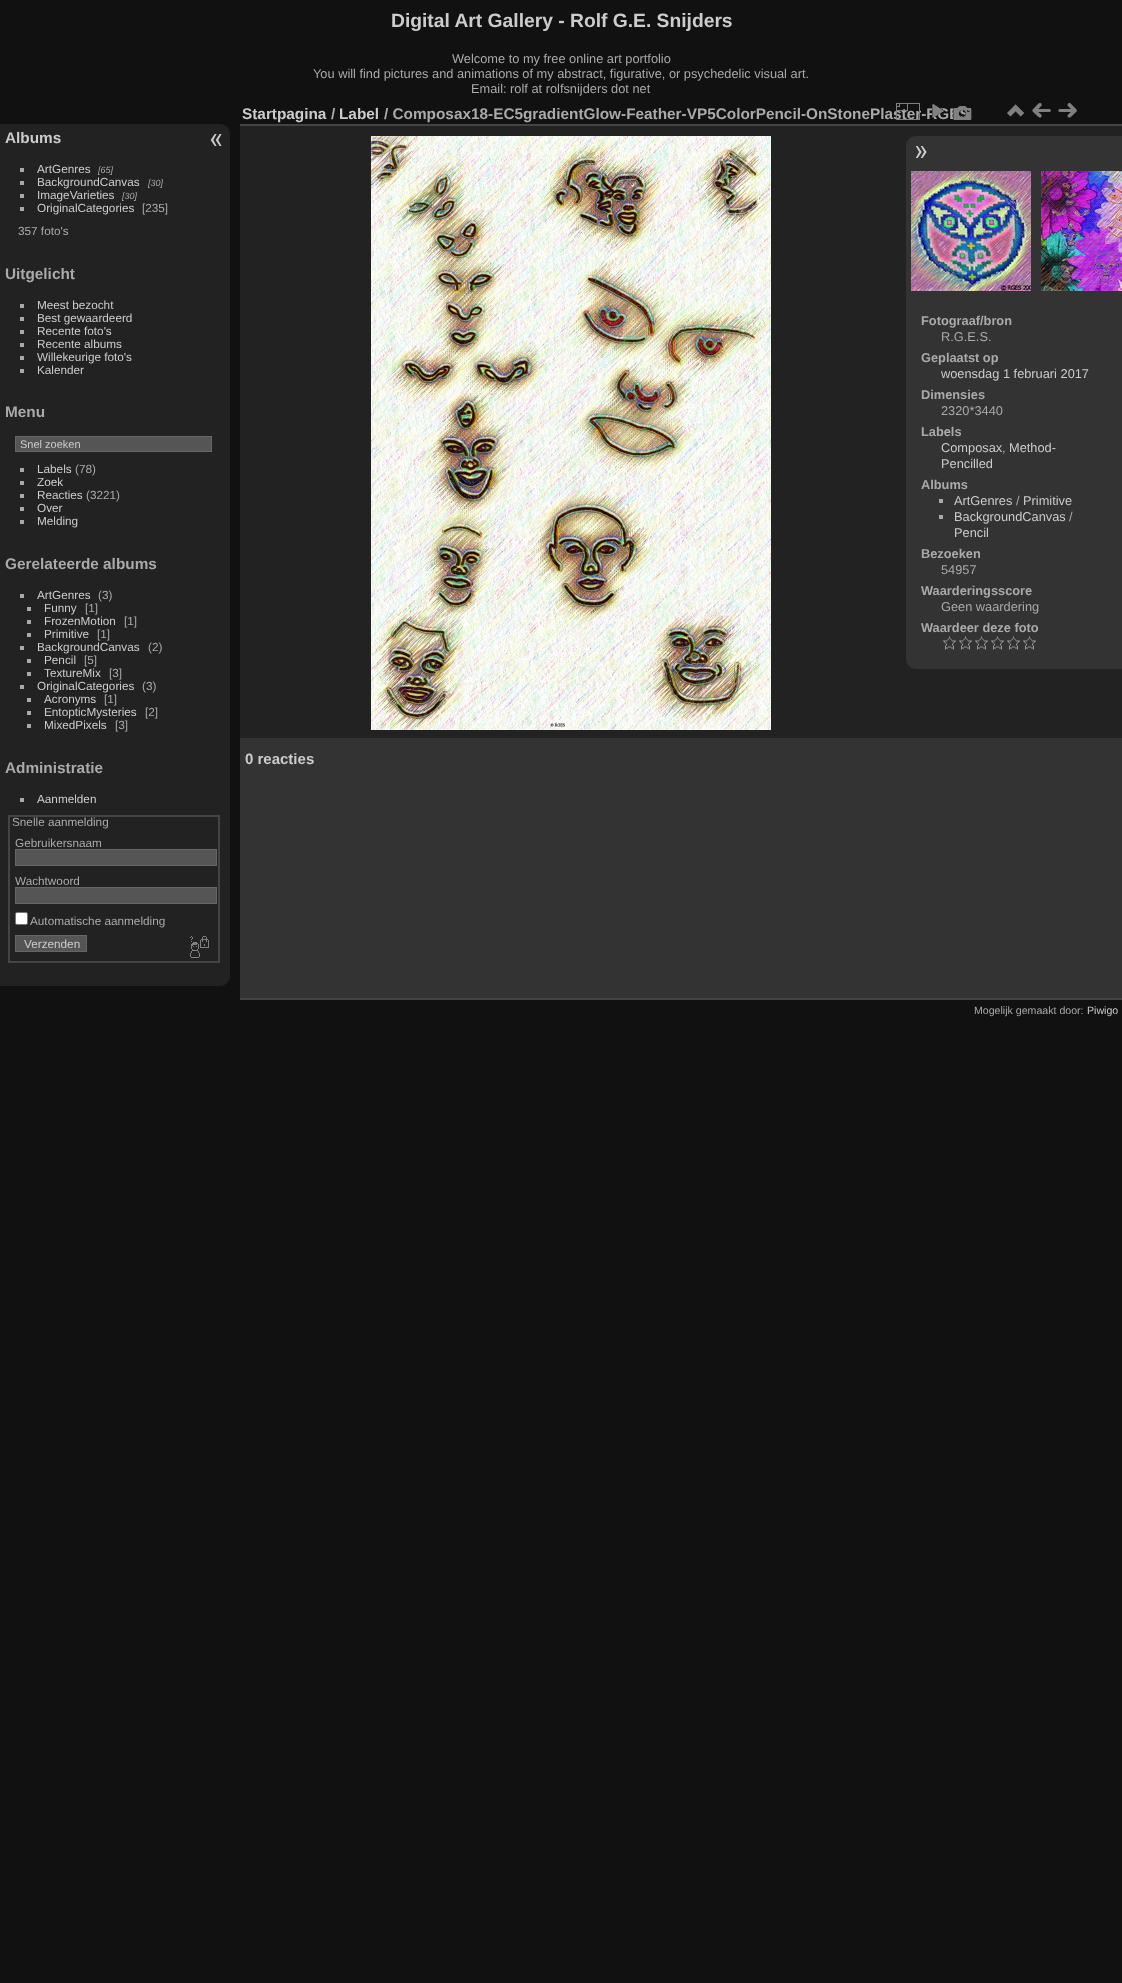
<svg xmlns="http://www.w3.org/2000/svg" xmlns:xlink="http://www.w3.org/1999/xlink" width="1122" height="1983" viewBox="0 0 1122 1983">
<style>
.cls-1{font:bold 19.25px Liberation Sans;fill:#cccccc}
.cls-2{font:12.8px Liberation Sans;fill:#aaaaaa}
.cls-3{font:bold 15.35px Liberation Sans;fill:#cccccc}
.cls-4{font:11.75px Liberation Sans;fill:#cccccc}
.cls-5{font:italic 9px Liberation Sans;fill:#aaaaaa}
.cls-6{font:11.75px Liberation Sans;fill:#aaaaaa}
.cls-7{font:bold 15.35px Liberation Sans;fill:#aaaaaa}
.cls-8{font:11px Liberation Sans;fill:#cccccc}
.cls-9{font:bold 12.8px Liberation Sans;fill:#aaaaaa}
.cls-10{font:12.8px Liberation Sans;fill:#cccccc}
.cls-11{font:bold 15px Liberation Sans;fill:#cccccc}
.cls-12{font:10.6px Liberation Sans;fill:#aaaaaa}
.cls-13{font:10.6px Liberation Sans;fill:#cccccc}
</style>
<rect width="100%" height="100%" fill="#111111"/>
<path fill="#222222" d="M0 124H220C225.5 124 230 128.5 230 134V976C230 981.5 225.5 986 220 986H0Z"/>
<rect fill="#aaaaaa" x="20" y="168" width="4" height="4"/>
<rect fill="#aaaaaa" x="20" y="181" width="4" height="4"/>
<rect fill="#aaaaaa" x="20" y="194" width="4" height="4"/>
<rect fill="#aaaaaa" x="20" y="207" width="4" height="4"/>
<rect fill="#aaaaaa" x="20" y="304" width="4" height="4"/>
<rect fill="#aaaaaa" x="20" y="317" width="4" height="4"/>
<rect fill="#aaaaaa" x="20" y="330" width="4" height="4"/>
<rect fill="#aaaaaa" x="20" y="343" width="4" height="4"/>
<rect fill="#aaaaaa" x="20" y="356" width="4" height="4"/>
<rect fill="#aaaaaa" x="20" y="369" width="4" height="4"/>
<rect fill="#555555" stroke="#666666" x="15.5" y="436.5" width="196" height="15"/>
<rect fill="#aaaaaa" x="20" y="468" width="4" height="4"/>
<rect fill="#aaaaaa" x="20" y="481" width="4" height="4"/>
<rect fill="#aaaaaa" x="20" y="494" width="4" height="4"/>
<rect fill="#aaaaaa" x="20" y="507" width="4" height="4"/>
<rect fill="#aaaaaa" x="20" y="520" width="4" height="4"/>
<rect fill="#aaaaaa" x="20" y="594" width="4" height="4"/>
<rect fill="#aaaaaa" x="27" y="607" width="4" height="4"/>
<rect fill="#aaaaaa" x="27" y="620" width="4" height="4"/>
<rect fill="#aaaaaa" x="27" y="633" width="4" height="4"/>
<rect fill="#aaaaaa" x="20" y="646" width="4" height="4"/>
<rect fill="#aaaaaa" x="27" y="659" width="4" height="4"/>
<rect fill="#aaaaaa" x="27" y="672" width="4" height="4"/>
<rect fill="#aaaaaa" x="20" y="685" width="4" height="4"/>
<rect fill="#aaaaaa" x="27" y="698" width="4" height="4"/>
<rect fill="#aaaaaa" x="27" y="711" width="4" height="4"/>
<rect fill="#aaaaaa" x="27" y="724" width="4" height="4"/>
<rect fill="#aaaaaa" x="20" y="798" width="4" height="4"/>
<rect fill="none" stroke="#444444" stroke-width="2" x="9" y="816" width="210" height="146"/>
<rect fill="#555555" stroke="#666666" x="15.5" y="849.5" width="201" height="16"/>
<rect fill="#555555" stroke="#666666" x="15.5" y="887.5" width="201" height="16"/>
<rect fill="#ffffff" stroke="#767676" x="15.5" y="912.5" width="12" height="12" rx="1.5"/>
<rect fill="#555555" stroke="#666666" x="15.5" y="935.5" width="71" height="16"/>
<image xlink:href="image0.png" x="190" y="936" width="19" height="22"/>
<image xlink:href="image1.png" x="210" y="134" width="12" height="12"/>
<rect fill="#222222" x="240" y="126" width="882" height="612"/>
<rect fill="#444444" x="240" y="998" width="882" height="2"/>
<rect fill="#444444" x="240" y="124" width="882" height="2"/>
<image xlink:href="image5.png" x="1007" y="104" width="17" height="13"/>
<image xlink:href="image6.png" x="1032" y="103" width="19" height="15"/>
<image xlink:href="image7.png" x="1058" y="103" width="19" height="15"/>
<image xlink:href="image8.png" x="371" y="136" width="400" height="594"/>
<path fill="#333333" d="M916 136H1122V669H916C910.5 669 906 664.5 906 659V146C906 140.5 910.5 136 916 136Z"/>
<image xlink:href="image9.png" x="915" y="146" width="12" height="12"/>
<image xlink:href="image10.png" x="911" y="171" width="120" height="120"/>
<image xlink:href="image11.png" x="1041" y="171" width="81" height="120"/>
<rect fill="#aaaaaa" x="939" y="499" width="4" height="4"/>
<rect fill="#aaaaaa" x="939" y="515" width="4" height="4"/>
<image xlink:href="image12.png" x="943" y="636" width="13" height="14"/>
<image xlink:href="image12.png" x="959" y="636" width="13" height="14"/>
<image xlink:href="image12.png" x="975" y="636" width="13" height="14"/>
<image xlink:href="image12.png" x="991" y="636" width="13" height="14"/>
<image xlink:href="image12.png" x="1007" y="636" width="13" height="14"/>
<image xlink:href="image12.png" x="1023" y="636" width="13" height="14"/>
<rect fill="#333333" x="240" y="738" width="882" height="260"/>
<text class="cls-1" x="391" y="27">Digital Art Gallery - Rolf G.E. Snijders</text>
<text class="cls-2" x="452" y="63">Welcome to my free online art portfolio</text>
<text class="cls-2" x="313" y="78">You will find pictures and animations of my abstract, figurative, or psychedelic visual art.</text>
<text class="cls-2" x="471" y="93">Email: rolf at rolfsnijders dot net</text>
<text class="cls-3" x="5" y="143">Albums</text>
<text class="cls-4" x="37" y="173">ArtGenres</text>
<text class="cls-5" x="98" y="173">[65]</text>
<text class="cls-4" x="37" y="186">BackgroundCanvas</text>
<text class="cls-5" x="148" y="186">[30]</text>
<text class="cls-4" x="37" y="199">ImageVarieties</text>
<text class="cls-5" x="122" y="199">[30]</text>
<text class="cls-4" x="37" y="212">OriginalCategories</text>
<text class="cls-6" x="142" y="212">[235]</text>
<text class="cls-6" x="18" y="235">357 foto's</text>
<text class="cls-7" x="5" y="279">Uitgelicht</text>
<text class="cls-4"><tspan x="37" y="309">Meest bezocht</tspan><tspan x="37" y="322">Best gewaardeerd</tspan><tspan x="37" y="335">Recente foto's</tspan><tspan x="37" y="348">Recente albums</tspan><tspan x="37" y="361">Willekeurige foto's</tspan><tspan x="37" y="374">Kalender</tspan></text>
<text class="cls-7" x="5" y="417">Menu</text>
<text class="cls-8" x="20" y="448">Snel zoeken</text>
<text class="cls-4" x="37" y="473">Labels</text>
<text class="cls-6" x="75" y="473">(78)</text>
<text class="cls-4"><tspan x="37" y="486">Zoek</tspan><tspan x="37" y="499">Reacties</tspan></text>
<text class="cls-6" x="86" y="499">(3221)</text>
<text class="cls-4"><tspan x="37" y="512">Over</tspan><tspan x="37" y="525">Melding</tspan></text>
<text class="cls-7" x="5" y="569">Gerelateerde albums</text>
<text class="cls-4" x="37" y="599">ArtGenres</text>
<text class="cls-6" x="98" y="599">(3)</text>
<text class="cls-4" x="44" y="612">Funny</text>
<text class="cls-6" x="85" y="612">[1]</text>
<text class="cls-4" x="44" y="625">FrozenMotion</text>
<text class="cls-6" x="124" y="625">[1]</text>
<text class="cls-4" x="44" y="638">Primitive</text>
<text class="cls-6" x="97" y="638">[1]</text>
<text class="cls-4" x="37" y="651">BackgroundCanvas</text>
<text class="cls-6" x="148" y="651">(2)</text>
<text class="cls-4" x="44" y="664">Pencil</text>
<text class="cls-6" x="84" y="664">[5]</text>
<text class="cls-4" x="44" y="677">TextureMix</text>
<text class="cls-6" x="109" y="677">[3]</text>
<text class="cls-4" x="37" y="690">OriginalCategories</text>
<text class="cls-6" x="142" y="690">(3)</text>
<text class="cls-4" x="44" y="703">Acronyms</text>
<text class="cls-6" x="104" y="703">[1]</text>
<text class="cls-4" x="44" y="716">EntopticMysteries</text>
<text class="cls-6" x="145" y="716">[2]</text>
<text class="cls-4" x="44" y="729">MixedPixels</text>
<text class="cls-6" x="115" y="729">[3]</text>
<text class="cls-7" x="5" y="773">Administratie</text>
<text class="cls-4" x="37" y="803">Aanmelden</text>
<text class="cls-6" x="12" y="826">Snelle aanmelding</text>
<text class="cls-6" x="15" y="847">Gebruikersnaam</text>
<text class="cls-6" x="15" y="885">Wachtwoord</text>
<text class="cls-6" x="30" y="925">Automatische aanmelding</text>
<text class="cls-4" x="24" y="948">Verzenden</text>
<text class="cls-3" x="242" y="119">Startpagina</text>
<text class="cls-7" x="331" y="119">/</text>
<text class="cls-3" x="339" y="119">Label</text>
<text class="cls-7" x="384" y="119">/ Composax18-EC5gradientGlow-Feather-VP5ColorPencil-OnStonePlaster-RGES</text>
<image xlink:href="image2.png" x="896" y="103" width="24" height="17"/>
<image xlink:href="image3.png" x="932" y="104" width="12" height="14"/>
<image xlink:href="image4.png" x="953" y="106" width="19" height="14"/>
<text class="cls-9" x="921" y="325">Fotograaf/bron</text>
<text class="cls-2" x="941" y="341">R.G.E.S.</text>
<text class="cls-9" x="921" y="362">Geplaatst op</text>
<text class="cls-10" x="941" y="378">woensdag 1 februari 2017</text>
<text class="cls-9" x="921" y="399">Dimensies</text>
<text class="cls-2" x="941" y="415">2320*3440</text>
<text class="cls-9" x="921" y="436">Labels</text>
<text class="cls-10" x="941" y="452">Composax</text>
<text class="cls-2" x="1002" y="452">,</text>
<text class="cls-10" x="1009" y="452">Method-</text>
<text class="cls-10" x="941" y="468">Pencilled</text>
<text class="cls-9" x="921" y="489">Albums</text>
<text class="cls-10" x="954" y="505">ArtGenres</text>
<text class="cls-2" x="1016" y="505">/</text>
<text class="cls-10" x="1023" y="505">Primitive</text>
<text class="cls-10" x="954" y="521">BackgroundCanvas</text>
<text class="cls-2" x="1069" y="521">/</text>
<text class="cls-10" x="954" y="537">Pencil</text>
<text class="cls-9" x="921" y="558">Bezoeken</text>
<text class="cls-2" x="941" y="574">54957</text>
<text class="cls-9" x="921" y="595">Waarderingsscore</text>
<text class="cls-2" x="941" y="611">Geen waardering</text>
<text class="cls-9" x="921" y="632">Waardeer deze foto</text>
<text class="cls-11" x="245" y="764">0 reacties</text>
<text class="cls-12" x="974" y="1014">Mogelijk gemaakt door:</text>
<text class="cls-13" x="1087" y="1014">Piwigo</text>
</svg>
